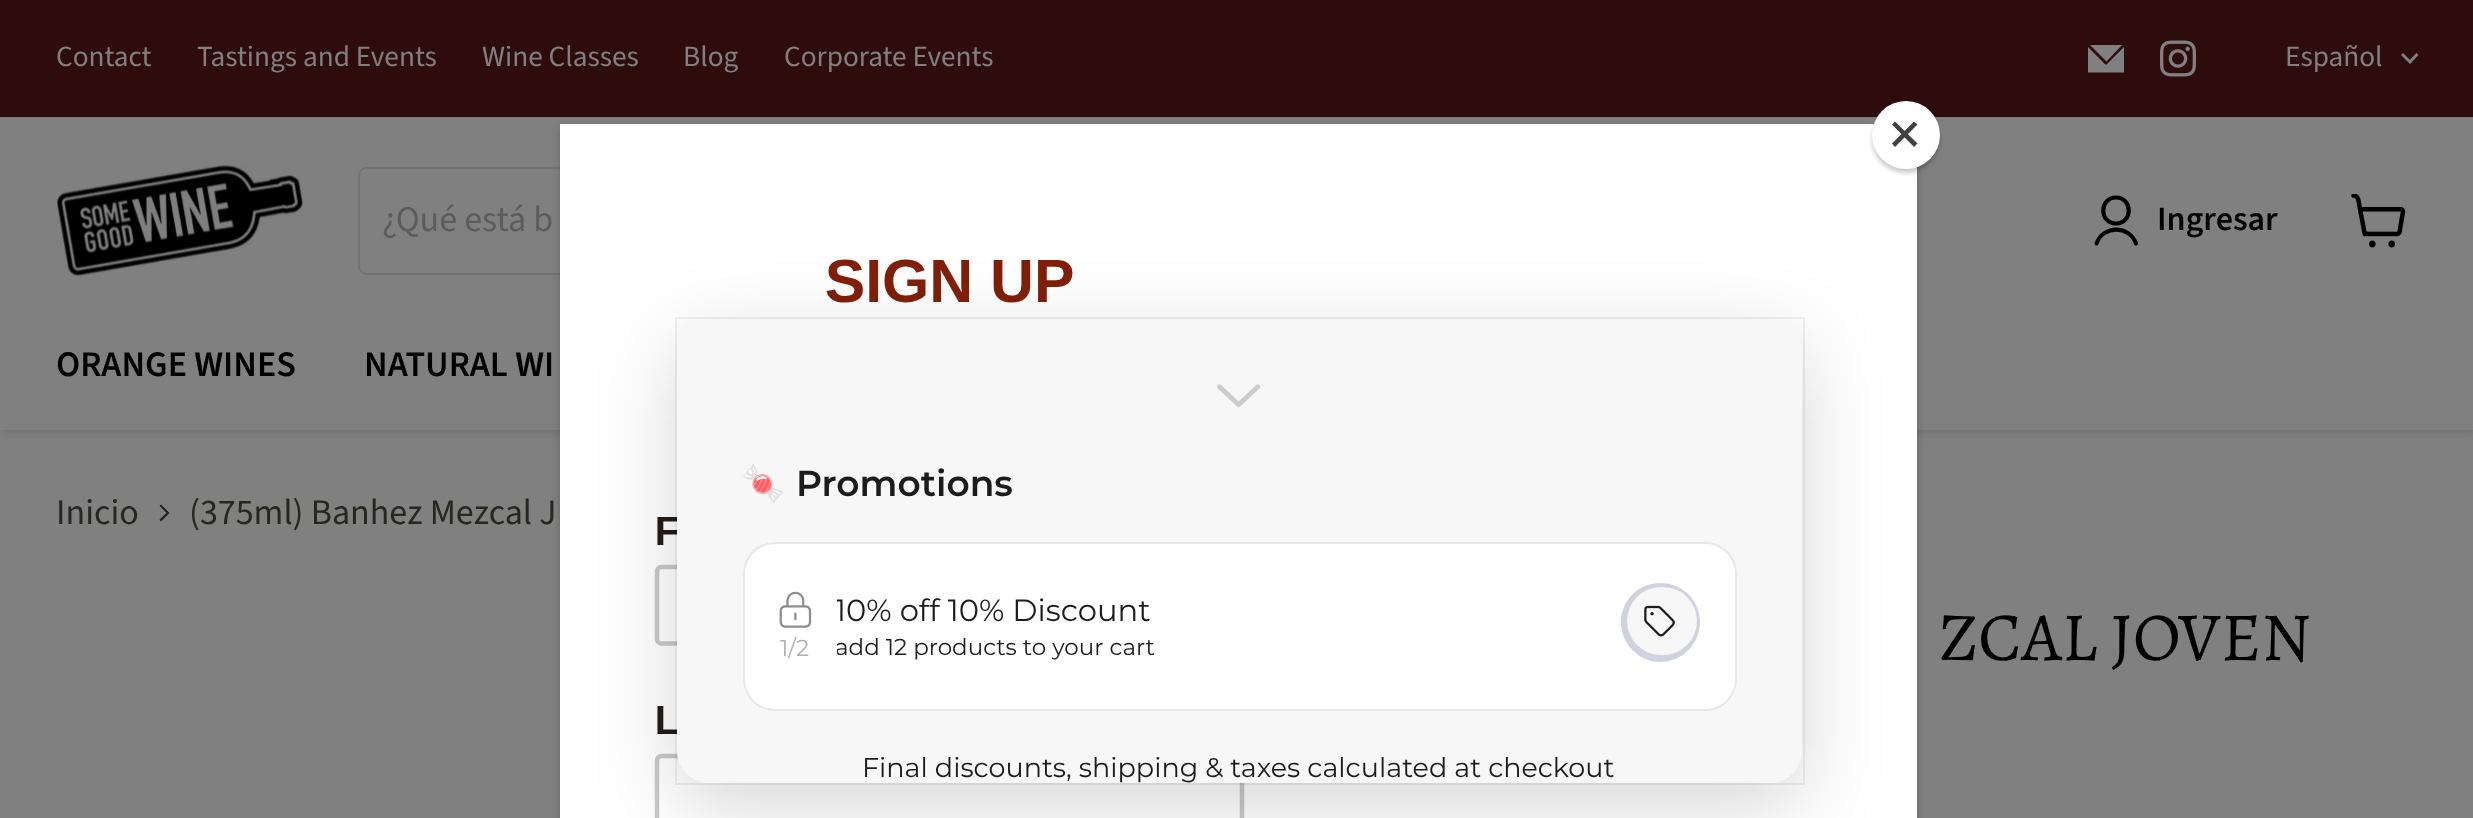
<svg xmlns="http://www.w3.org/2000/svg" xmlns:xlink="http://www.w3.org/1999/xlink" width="2473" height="818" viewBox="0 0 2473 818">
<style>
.cls-1{font:29.25px Source Sans Pro;fill:#808080}
.cls-2{font:36px Source Sans Pro;fill:#5c5c5c}
.cls-3{font:600 34px Source Sans Pro;fill:#000000}
.cls-4{font:600 36px Source Sans Pro;fill:#000000}
.cls-5{font:bold 36px Noto Color Emoji;fill:#1c1c1c}
.cls-6{font:600 36px Montserrat;fill:#1c1c1c}
.cls-7{font:23px Montserrat;fill:#b0b0b0}
.cls-8{font:30.6px Montserrat;fill:#1c1c1c}
.cls-9{font:23px Montserrat;fill:#1c1c1c}
.cls-10{font:27px Montserrat;fill:#1c1c1c}
.cls-11{font:36px Source Sans Pro;fill:#252721}
.cls-12{font:69px Alegreya;fill:#000000}
</style>
<defs>
<clipPath id="clip1"><rect x="743" y="464" width="994" height="42"/></clipPath>
<clipPath id="clip2"><rect x="837" y="587" width="763" height="77"/></clipPath>
</defs>
<rect width="100%" height="100%" fill="#808080"/>
<rect fill="#404040" fill-opacity="0.25" filter="blur(4.5px)" x="0" y="122" width="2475" height="310"/>
<rect fill="#2f0c0c" x="0" y="0" width="2473" height="117"/>
<path fill="#808080" d="M2107 64C2105.5 66 2102.5 61.5 2102.5 61.5L2088 47V72.5H2124V47Z"/>
<path fill="#808080" d="M2122 45H2090L2106.5 61.5Z"/>
<image xlink:href="image0.png" x="2160" y="40" width="36" height="37"/>
<path fill="none" stroke="#808080" stroke-width="2.8" stroke-linecap="square" d="M2410 62L2416.5 55M2410 62L2403 55"/>
<rect fill="#808080" x="0" y="118" width="2473" height="312"/>
<rect fill="none" stroke="#404040" stroke-opacity="0.2" stroke-width="2" x="359" y="168" width="1555" height="106" rx="8"/>
<path fill="#808080" d="M367 169H1791V272H367C363 272 360 269 360 265V176C360 172 363 169 367 169Z"/>
<rect fill="#000000" fill-opacity="0.2" filter="blur(4.5px)" x="560" y="128" width="1357" height="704"/>
<image xlink:href="image1.png" x="560" y="124" width="1357" height="694"/>
<rect fill="#000000" fill-opacity="0.2" filter="blur(2px)" x="1872" y="106" width="68" height="67" rx="33.5"/>
<circle fill="#ffffff" cx="1906" cy="135" r="34"/>
<path fill="#414141" d="M1914 121.5L1917.5 124.5L1895 147L1892 143.5Z"/>
<path fill="#414141" d="M1892 124.5L1895 121.5L1917.5 143.5L1914 147Z"/>
<image xlink:href="image2.png" x="57" y="165" width="246" height="111"/>
<path fill="none" stroke="#000000" stroke-width="4.1" stroke-linecap="round" stroke-linejoin="round" d="M2116 223.5C2133 223.5 2133 197.5 2116 197.5C2099 197.5 2099 223.5 2116 223.5ZM2136 243.5C2129.5 225 2103 225 2096.5 243.5"/>
<image xlink:href="image3.png" x="2351" y="194" width="55" height="54"/>
<rect fill="none" stroke="#000000" stroke-opacity="0.06" stroke-width="2" x="676" y="318" width="1128" height="466"/>
<rect fill="#000000" fill-opacity="0.16" filter="blur(40.5px)" x="677" y="342" width="1125" height="464" rx="32"/>
<rect fill="#f7f7f7" x="677" y="320" width="1125" height="463" rx="32"/>
<image xlink:href="image4.png" x="1217" y="384" width="44" height="23"/>
<rect fill="#ffffff" x="743" y="542" width="994" height="169" rx="32"/>
<rect fill="none" stroke="#1c1c1c" stroke-opacity="0.1" stroke-width="2" x="744" y="543" width="992" height="167" rx="31"/>
<image xlink:href="image5.png" x="779" y="591" width="33" height="37"/>
<path fill="#d0d3df" d="M1660 622V583C1682 583 1700 600 1700 622C1700 644 1682 662 1660 662C1639 662 1621 644 1621 622C1621 600 1639 583 1660 583Z"/>
<rect fill="#f7f7f7" x="1627" y="587" width="70" height="68" rx="34"/>
<image xlink:href="image6.png" x="1644" y="605" width="31" height="32"/>
<path fill="#232323" fill-rule="evenodd" d="M159.5 519.5L161 521.5L169.5 513L161 504.5L159.5 506L166.5 513Z"/>
<text class="cls-1" x="56" y="66">Contact</text>
<text class="cls-1" x="197" y="66">Tastings and Events</text>
<text class="cls-1" x="482" y="66">Wine Classes</text>
<text class="cls-1" x="683" y="66">Blog</text>
<text class="cls-1" x="784" y="66">Corporate Events</text>
<text class="cls-1" x="2285" y="66">Español</text>
<text class="cls-2" x="382" y="231">¿Qué está b</text>
<text class="cls-3" x="2157" y="230">Ingresar</text>
<text class="cls-4" x="56" y="376">ORANGE WINES</text>
<text class="cls-4" x="364" y="376">NATURAL WI</text>
<g clip-path="url(#clip1)">
<text class="cls-5" x="741" y="496">🍬</text>
</g>
<text class="cls-6" x="796" y="496">Promotions</text>
<text class="cls-7" x="780" y="656">1/2</text>
<g clip-path="url(#clip2)">
<text class="cls-8" x="835" y="621">10% off 10% Discount</text>
<text class="cls-9" x="835" y="655">add 12 products to your cart</text>
</g>
<text class="cls-10" x="862" y="777">Final discounts, shipping &amp; taxes calculated at checkout</text>
<text class="cls-11" x="56" y="524">Inicio</text>
<text class="cls-11" x="189" y="524">(375ml) Banhez Mezcal J</text>
<text class="cls-12" x="1939" y="660">ZCAL JOVEN</text>
</svg>
